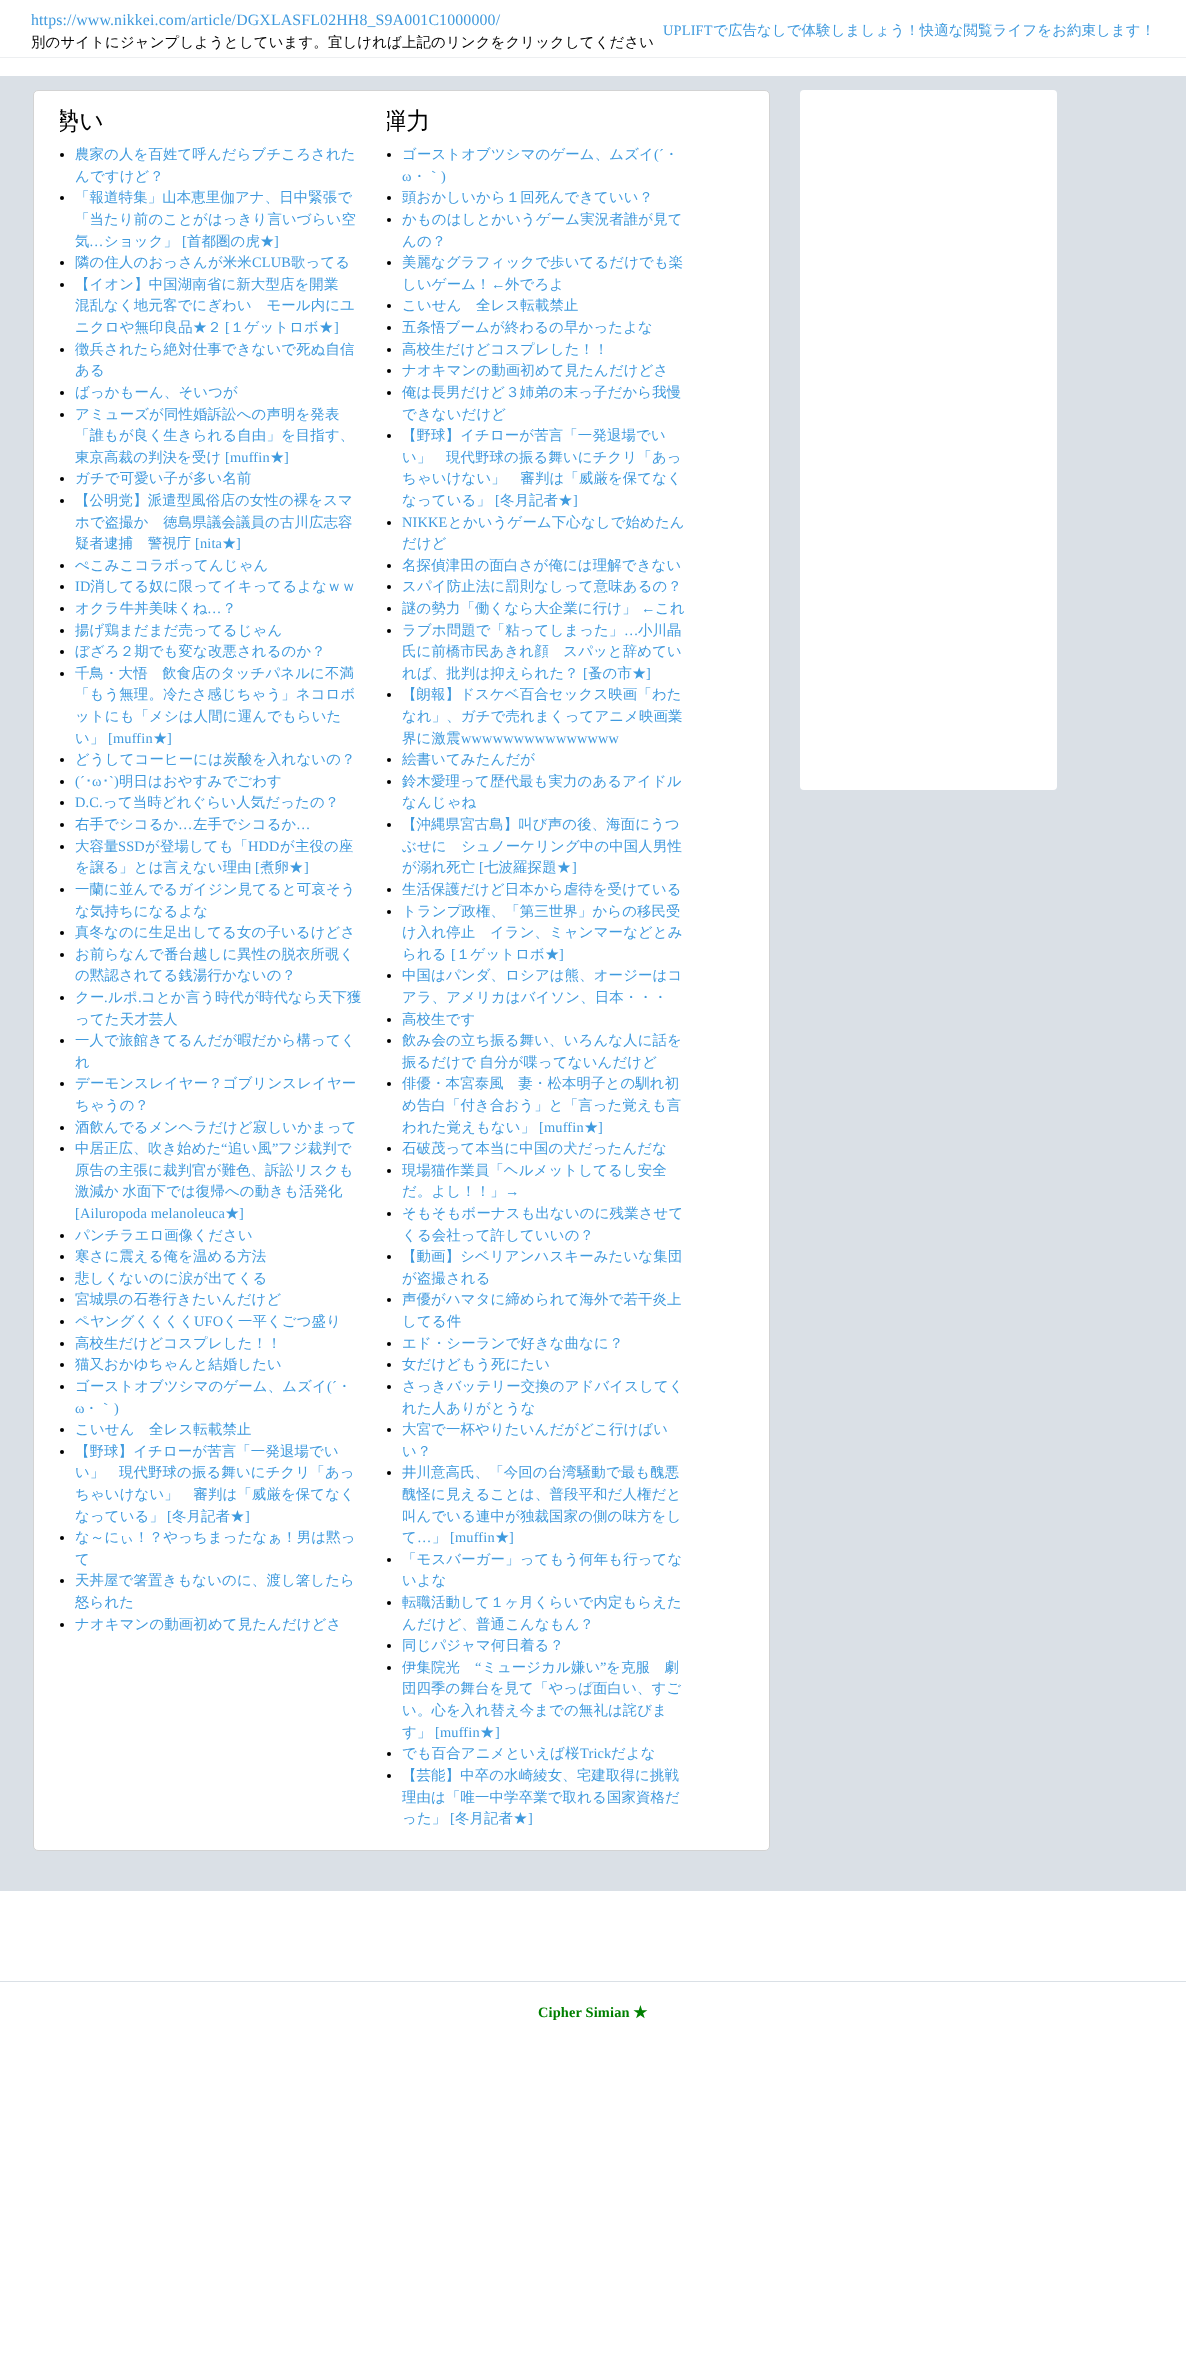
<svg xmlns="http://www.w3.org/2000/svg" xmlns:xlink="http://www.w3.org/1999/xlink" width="1186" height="2377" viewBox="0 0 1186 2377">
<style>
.cls-1{font:15.85px Liberation Serif;letter-spacing:0.15px;fill:#3f9ade}
.cls-2{font:500 14.4px WenQuanYi Zen Hei;letter-spacing:0.15px;fill:#000000}
.cls-3{font:14.4px Liberation Serif;letter-spacing:0.15px;fill:#3f9ade}
.cls-4{font:500 14.4px WenQuanYi Zen Hei;letter-spacing:0.15px;fill:#3f9ade}
.cls-5{font:500 24px WenQuanYi Zen Hei;letter-spacing:0.15px;fill:#000000}
.cls-6{font:14.4px IPAPGothic;letter-spacing:0.15px;fill:#3f9ade}
.cls-7{font:bold 14.4px Liberation Serif;letter-spacing:0.15px;fill:#008000}
.cls-8{font:bold 14.4px WenQuanYi Zen Hei;letter-spacing:0.15px;fill:#008000}
</style>
<defs>
<clipPath id="clip1"><rect x="60" y="77" width="306" height="1753"/></clipPath>
<clipPath id="clip2"><rect x="387" y="77" width="307" height="1753"/></clipPath>
</defs>
<rect width="100%" height="100%" fill="#ffffff"/>
<rect fill="#edeff1" x="0" y="57" width="1186" height="1"/>
<rect fill="#dae0e6" x="0" y="76" width="1186" height="1815"/>
<rect fill="#ffffff" stroke="#d3d3d3" x="33.5" y="90.5" width="736" height="1760" rx="4.5"/>
<circle fill="#000000" cx="62" cy="155" r="2"/>
<circle fill="#000000" cx="62" cy="198" r="2"/>
<circle fill="#000000" cx="62" cy="263" r="2"/>
<circle fill="#000000" cx="62" cy="285" r="2"/>
<circle fill="#000000" cx="62" cy="350" r="2"/>
<circle fill="#000000" cx="62" cy="393" r="2"/>
<circle fill="#000000" cx="62" cy="415" r="2"/>
<circle fill="#000000" cx="62" cy="479" r="2"/>
<circle fill="#000000" cx="62" cy="501" r="2"/>
<circle fill="#000000" cx="62" cy="566" r="2"/>
<circle fill="#000000" cx="62" cy="587" r="2"/>
<circle fill="#000000" cx="62" cy="609" r="2"/>
<circle fill="#000000" cx="62" cy="631" r="2"/>
<circle fill="#000000" cx="62" cy="652" r="2"/>
<circle fill="#000000" cx="62" cy="674" r="2"/>
<circle fill="#000000" cx="62" cy="760" r="2"/>
<circle fill="#000000" cx="62" cy="782" r="2"/>
<circle fill="#000000" cx="62" cy="803" r="2"/>
<circle fill="#000000" cx="62" cy="825" r="2"/>
<circle fill="#000000" cx="62" cy="847" r="2"/>
<circle fill="#000000" cx="62" cy="890" r="2"/>
<circle fill="#000000" cx="62" cy="933" r="2"/>
<circle fill="#000000" cx="62" cy="955" r="2"/>
<circle fill="#000000" cx="62" cy="998" r="2"/>
<circle fill="#000000" cx="62" cy="1041" r="2"/>
<circle fill="#000000" cx="62" cy="1084" r="2"/>
<circle fill="#000000" cx="62" cy="1128" r="2"/>
<circle fill="#000000" cx="62" cy="1149" r="2"/>
<circle fill="#000000" cx="62" cy="1236" r="2"/>
<circle fill="#000000" cx="62" cy="1257" r="2"/>
<circle fill="#000000" cx="62" cy="1279" r="2"/>
<circle fill="#000000" cx="62" cy="1300" r="2"/>
<circle fill="#000000" cx="62" cy="1322" r="2"/>
<circle fill="#000000" cx="62" cy="1344" r="2"/>
<circle fill="#000000" cx="62" cy="1365" r="2"/>
<circle fill="#000000" cx="62" cy="1387" r="2"/>
<circle fill="#000000" cx="62" cy="1430" r="2"/>
<circle fill="#000000" cx="62" cy="1452" r="2"/>
<circle fill="#000000" cx="62" cy="1538" r="2"/>
<circle fill="#000000" cx="62" cy="1581" r="2"/>
<circle fill="#000000" cx="62" cy="1625" r="2"/>
<circle fill="#000000" cx="389" cy="155" r="2"/>
<circle fill="#000000" cx="389" cy="198" r="2"/>
<circle fill="#000000" cx="389" cy="220" r="2"/>
<circle fill="#000000" cx="389" cy="263" r="2"/>
<circle fill="#000000" cx="389" cy="306" r="2"/>
<circle fill="#000000" cx="389" cy="328" r="2"/>
<circle fill="#000000" cx="389" cy="350" r="2"/>
<circle fill="#000000" cx="389" cy="371" r="2"/>
<circle fill="#000000" cx="389" cy="393" r="2"/>
<circle fill="#000000" cx="389" cy="436" r="2"/>
<circle fill="#000000" cx="389" cy="523" r="2"/>
<circle fill="#000000" cx="389" cy="566" r="2"/>
<circle fill="#000000" cx="389" cy="587" r="2"/>
<circle fill="#000000" cx="389" cy="609" r="2"/>
<circle fill="#000000" cx="389" cy="631" r="2"/>
<circle fill="#000000" cx="389" cy="695" r="2"/>
<circle fill="#000000" cx="389" cy="760" r="2"/>
<circle fill="#000000" cx="389" cy="782" r="2"/>
<circle fill="#000000" cx="389" cy="825" r="2"/>
<circle fill="#000000" cx="389" cy="890" r="2"/>
<circle fill="#000000" cx="389" cy="912" r="2"/>
<circle fill="#000000" cx="389" cy="976" r="2"/>
<circle fill="#000000" cx="389" cy="1020" r="2"/>
<circle fill="#000000" cx="389" cy="1041" r="2"/>
<circle fill="#000000" cx="389" cy="1084" r="2"/>
<circle fill="#000000" cx="389" cy="1149" r="2"/>
<circle fill="#000000" cx="389" cy="1171" r="2"/>
<circle fill="#000000" cx="389" cy="1214" r="2"/>
<circle fill="#000000" cx="389" cy="1257" r="2"/>
<circle fill="#000000" cx="389" cy="1300" r="2"/>
<circle fill="#000000" cx="389" cy="1344" r="2"/>
<circle fill="#000000" cx="389" cy="1365" r="2"/>
<circle fill="#000000" cx="389" cy="1387" r="2"/>
<circle fill="#000000" cx="389" cy="1430" r="2"/>
<circle fill="#000000" cx="389" cy="1473" r="2"/>
<circle fill="#000000" cx="389" cy="1560" r="2"/>
<circle fill="#000000" cx="389" cy="1603" r="2"/>
<circle fill="#000000" cx="389" cy="1646" r="2"/>
<circle fill="#000000" cx="389" cy="1668" r="2"/>
<circle fill="#000000" cx="389" cy="1754" r="2"/>
<circle fill="#000000" cx="389" cy="1776" r="2"/>
<rect fill="#ffffff" x="800" y="90" width="257" height="700" rx="4"/>
<rect fill="#dae0e6" x="0" y="1981" width="1186" height="1"/>
<text class="cls-1" x="31" y="25">https://www.nikkei.com/article/DGXLASFL02HH8_S9A001C1000000/</text>
<text class="cls-2" x="31" y="47">別のサイトにジャンプしようとしています。宜しければ上記のリンクをクリックしてください</text>
<text class="cls-3" x="663" y="35">UPLIFT</text>
<text class="cls-4" x="713" y="35">で広告なしで体験しましょう！快適な閲覧ライフをお約束します！</text>
<g clip-path="url(#clip1)">
<text class="cls-5" x="55" y="129">勢い</text>
</g>
<text class="cls-4"><tspan x="75" y="159">農家の人を百姓て呼んだらブチころされた</tspan><tspan x="75" y="181">んですけど？</tspan><tspan x="75" y="202">「報道特集」山本恵里伽アナ、日中緊張で</tspan><tspan x="75" y="224">「当たり前のことがはっきり言いづらい空</tspan><tspan x="75" y="246">気</tspan></text>
<text class="cls-3" x="89" y="246">…</text>
<text class="cls-4" x="104" y="246">ショック」</text>
<text class="cls-3" x="182" y="246">[</text>
<text class="cls-4" x="187" y="246">首都圏の虎★</text>
<text class="cls-3" x="274" y="246">]</text>
<text class="cls-4" x="75" y="267">隣の住人のおっさんが米米</text>
<text class="cls-3" x="252" y="267">CLUB</text>
<text class="cls-4" x="291" y="267">歌ってる</text>
<text class="cls-4"><tspan x="75" y="289">【イオン】中国湖南省に新大型店を開業</tspan><tspan x="75" y="310">混乱なく地元客でにぎわい　モール内にユ</tspan><tspan x="75" y="332">ニクロや無印良品★２</tspan></text>
<text class="cls-3" x="225" y="332">[</text>
<text class="cls-4" x="230" y="332">１ゲットロボ★</text>
<text class="cls-3" x="334" y="332">]</text>
<text class="cls-4"><tspan x="75" y="354">徴兵されたら絶対仕事できないで死ぬ自信</tspan><tspan x="75" y="375">ある</tspan><tspan x="75" y="397">ばっかもーん、そいつが</tspan><tspan x="75" y="419">アミューズが同性婚訴訟への声明を発表</tspan><tspan x="75" y="440">「誰もが良く生きられる自由」を目指す、</tspan><tspan x="75" y="462">東京高裁の判決を受け</tspan></text>
<text class="cls-3" x="225" y="462">[muffin</text>
<text class="cls-4" x="270" y="462">★</text>
<text class="cls-3" x="284" y="462">]</text>
<text class="cls-4"><tspan x="75" y="483">ガチで可愛い子が多い名前</tspan><tspan x="75" y="505">【公明党】派遣型風俗店の女性の裸をスマ</tspan><tspan x="75" y="527">ホで盗撮か　徳島県議会議員の古川広志容</tspan><tspan x="75" y="548">疑者逮捕　警視庁</tspan></text>
<text class="cls-3" x="195" y="548">[nita</text>
<text class="cls-4" x="222" y="548">★</text>
<text class="cls-3" x="236" y="548">]</text>
<text class="cls-4" x="75" y="570">ぺこみこコラボってんじゃん</text>
<text class="cls-3" x="75" y="591">ID</text>
<text class="cls-4" x="90" y="591">消してる奴に限ってイキってるよなｗｗ</text>
<text class="cls-4" x="75" y="613">オクラ牛丼美味くね</text>
<text class="cls-4" x="222" y="613">？</text>
<text class="cls-3" x="207" y="613">…</text>
<text class="cls-4"><tspan x="75" y="635">揚げ鶏まだまだ売ってるじゃん</tspan><tspan x="75" y="656">ぼざろ２期でも変な改悪されるのか？</tspan><tspan x="75" y="678">千鳥・大悟　飲食店のタッチパネルに不満</tspan><tspan x="75" y="699">「もう無理。冷たさ感じちゃう」ネコロボ</tspan><tspan x="75" y="721">ットにも「メシは人間に運んでもらいた</tspan><tspan x="75" y="743">い」</tspan></text>
<text class="cls-3" x="108" y="743">[muffin</text>
<text class="cls-4" x="153" y="743">★</text>
<text class="cls-3" x="167" y="743">]</text>
<text class="cls-4" x="75" y="764">どうしてコーヒーには炭酸を入れないの？</text>
<text class="cls-3" x="75" y="786">(´</text>
<text class="cls-6" x="85" y="786">･</text>
<text class="cls-3" x="92" y="786">ω</text>
<text class="cls-6" x="102" y="786">･</text>
<text class="cls-3" x="109" y="786">`)</text>
<text class="cls-4" x="119" y="786">明日はおやすみでごわす</text>
<text class="cls-3" x="75" y="807">D.C.</text>
<text class="cls-4" x="103" y="807">って当時どれぐらい人気だったの？</text>
<text class="cls-4" x="75" y="829">右手でシコるか</text>
<text class="cls-4" x="193" y="829">左手でシコるか</text>
<text class="cls-3" x="178" y="829">…</text>
<text class="cls-3" x="296" y="829">…</text>
<text class="cls-4" x="75" y="851">大容量</text>
<text class="cls-3" x="118" y="851">SSD</text>
<text class="cls-4" x="145" y="851">が登場しても「</text>
<text class="cls-3" x="248" y="851">HDD</text>
<text class="cls-4" x="280" y="851">が主役の座</text>
<text class="cls-4" x="75" y="872">を譲る」とは言えない理由</text>
<text class="cls-3" x="255" y="872">[</text>
<text class="cls-4" x="260" y="872">煮卵★</text>
<text class="cls-3" x="304" y="872">]</text>
<text class="cls-4"><tspan x="75" y="894">一蘭に並んでるガイジン見てると可哀そう</tspan><tspan x="75" y="916">な気持ちになるよな</tspan><tspan x="75" y="937">真冬なのに生足出してる女の子いるけどさ</tspan><tspan x="75" y="959">お前らなんで番台越しに異性の脱衣所覗く</tspan><tspan x="75" y="980">の黙認されてる銭湯行かないの？</tspan><tspan x="75" y="1002">クー</tspan></text>
<text class="cls-4" x="108" y="1002">ルポ</text>
<text class="cls-4" x="141" y="1002">コとか言う時代が時代なら天下獲</text>
<text class="cls-3" x="104" y="1002">.</text>
<text class="cls-3" x="138" y="1002">.</text>
<text class="cls-4"><tspan x="75" y="1024">ってた天才芸人</tspan><tspan x="75" y="1045">一人で旅館きてるんだが暇だから構ってく</tspan><tspan x="75" y="1067">れ</tspan><tspan x="75" y="1088">デーモンスレイヤー？ゴブリンスレイヤー</tspan><tspan x="75" y="1110">ちゃうの？</tspan><tspan x="75" y="1132">酒飲んでるメンヘラだけど寂しいかまって</tspan><tspan x="75" y="1153">中居正広、吹き始めた</tspan></text>
<text class="cls-3" x="221" y="1153">“</text>
<text class="cls-4" x="228" y="1153">追い風</text>
<text class="cls-3" x="272" y="1153">”</text>
<text class="cls-4" x="278" y="1153">フジ裁判で</text>
<text class="cls-4"><tspan x="75" y="1175">原告の主張に裁判官が難色、訴訟リスクも</tspan><tspan x="75" y="1196" word-spacing="-1">激減か 水面下では復帰への動きも活発化</tspan></text>
<text class="cls-3" x="75" y="1218">[Ailuropoda melanoleuca</text>
<text class="cls-4" x="225" y="1218">★</text>
<text class="cls-3" x="239" y="1218">]</text>
<text class="cls-4"><tspan x="75" y="1240">パンチラエロ画像ください</tspan><tspan x="75" y="1261">寒さに震える俺を温める方法</tspan><tspan x="75" y="1283">悲しくないのに涙が出てくる</tspan><tspan x="75" y="1304">宮城県の石巻行きたいんだけど</tspan><tspan x="75" y="1326">ペヤングくくくく</tspan></text>
<text class="cls-3" x="194" y="1326">UFO</text>
<text class="cls-4" x="223" y="1326">く一平くごつ盛り</text>
<text class="cls-4"><tspan x="75" y="1348">高校生だけどコスプレした！！</tspan><tspan x="75" y="1369">猫又おかゆちゃんと結婚したい</tspan><tspan x="75" y="1391">ゴーストオブツシマのゲーム、ムズイ</tspan></text>
<text class="cls-3" x="327" y="1391">(´</text>
<text class="cls-4" x="337" y="1391">・</text>
<text class="cls-3" x="75" y="1413">ω</text>
<text class="cls-4" x="84" y="1413">・｀</text>
<text class="cls-3" x="114" y="1413">)</text>
<text class="cls-4"><tspan x="75" y="1434">こいせん　全レス転載禁止</tspan><tspan x="75" y="1456">【野球】イチローが苦言「一発退場でい</tspan><tspan x="75" y="1477">い」　現代野球の振る舞いにチクリ「あっ</tspan><tspan x="75" y="1499">ちゃいけない」　審判は「威厳を保てなく</tspan><tspan x="75" y="1521">なっている」</tspan></text>
<text class="cls-3" x="167" y="1521">[</text>
<text class="cls-4" x="172" y="1521">冬月記者★</text>
<text class="cls-3" x="245" y="1521">]</text>
<text class="cls-4"><tspan x="75" y="1542">な～にぃ！？やっちまったなぁ！男は黙っ</tspan><tspan x="75" y="1564">て</tspan><tspan x="75" y="1585">天丼屋で箸置きもないのに、渡し箸したら</tspan><tspan x="75" y="1607">怒られた</tspan><tspan x="75" y="1629">ナオキマンの動画初めて見たんだけどさ</tspan></text>
<g clip-path="url(#clip2)">
<text class="cls-5" x="382" y="129">弾力</text>
</g>
<text class="cls-4" x="402" y="159">ゴーストオブツシマのゲーム、ムズイ</text>
<text class="cls-3" x="654" y="159">(´</text>
<text class="cls-4" x="664" y="159">・</text>
<text class="cls-3" x="402" y="181">ω</text>
<text class="cls-4" x="412" y="181">・｀</text>
<text class="cls-3" x="441" y="181">)</text>
<text class="cls-4"><tspan x="402" y="202">頭おかしいから１回死んできていい？</tspan><tspan x="402" y="224">かものはしとかいうゲーム実況者誰が見て</tspan><tspan x="402" y="246">んの？</tspan><tspan x="402" y="267">美麗なグラフィックで歩いてるだけでも楽</tspan><tspan x="402" y="289">しいゲーム！</tspan></text>
<text class="cls-3" x="491" y="289">←</text>
<text class="cls-4" x="505" y="289">外でろよ</text>
<text class="cls-4"><tspan x="402" y="310">こいせん　全レス転載禁止</tspan><tspan x="402" y="332">五条悟ブームが終わるの早かったよな</tspan><tspan x="402" y="354">高校生だけどコスプレした！！</tspan><tspan x="402" y="375">ナオキマンの動画初めて見たんだけどさ</tspan><tspan x="402" y="397">俺は長男だけど３姉弟の末っ子だから我慢</tspan><tspan x="402" y="419">できないだけど</tspan><tspan x="402" y="440">【野球】イチローが苦言「一発退場でい</tspan><tspan x="402" y="462">い」　現代野球の振る舞いにチクリ「あっ</tspan><tspan x="402" y="483">ちゃいけない」　審判は「威厳を保てなく</tspan><tspan x="402" y="505">なっている」</tspan></text>
<text class="cls-3" x="495" y="505">[</text>
<text class="cls-4" x="500" y="505">冬月記者★</text>
<text class="cls-3" x="573" y="505">]</text>
<text class="cls-3" x="402" y="527">NIKKE</text>
<text class="cls-4" x="448" y="527">とかいうゲーム下心なしで始めたん</text>
<text class="cls-4"><tspan x="402" y="548">だけど</tspan><tspan x="402" y="570">名探偵津田の面白さが俺には理解できない</tspan><tspan x="402" y="591">スパイ防止法に罰則なしって意味あるの？</tspan><tspan x="402" y="613">謎の勢力「働くなら大企業に行け」</tspan></text>
<text class="cls-3" x="641" y="613">←</text>
<text class="cls-4" x="655" y="613">これ</text>
<text class="cls-4" x="402" y="635">ラブホ問題で「粘ってしまった」</text>
<text class="cls-4" x="638" y="635">小川晶</text>
<text class="cls-3" x="624" y="635">…</text>
<text class="cls-4"><tspan x="402" y="656">氏に前橋市民あきれ顔　スパッと辞めてい</tspan><tspan x="402" y="678">れば、批判は抑えられた？</tspan></text>
<text class="cls-3" x="583" y="678">[</text>
<text class="cls-4" x="588" y="678">蚤の市★</text>
<text class="cls-3" x="646" y="678">]</text>
<text class="cls-4"><tspan x="402" y="699">【朗報】ドスケベ百合セックス映画「わた</tspan><tspan x="402" y="721">なれ」、ガチで売れまくってアニメ映画業</tspan><tspan x="402" y="743">界に激震</tspan></text>
<text class="cls-3" x="461" y="743">wwwwwwwwwwwwwww</text>
<text class="cls-4"><tspan x="402" y="764">絵書いてみたんだが</tspan><tspan x="402" y="786">鈴木愛理って歴代最も実力のあるアイドル</tspan><tspan x="402" y="807">なんじゃね</tspan><tspan x="402" y="829">【沖縄県宮古島】叫び声の後、海面にうつ</tspan><tspan x="402" y="851">ぶせに　シュノーケリング中の中国人男性</tspan><tspan x="402" y="872">が溺れ死亡</tspan></text>
<text class="cls-3" x="479" y="872">[</text>
<text class="cls-4" x="484" y="872">七波羅探題★</text>
<text class="cls-3" x="572" y="872">]</text>
<text class="cls-4"><tspan x="402" y="894">生活保護だけど日本から虐待を受けている</tspan><tspan x="402" y="916">トランプ政権、「第三世界」からの移民受</tspan><tspan x="402" y="937">け入れ停止　イラン、ミャンマーなどとみ</tspan><tspan x="402" y="959">られる</tspan></text>
<text class="cls-3" x="451" y="959">[</text>
<text class="cls-4" x="456" y="959">１ゲットロボ★</text>
<text class="cls-3" x="559" y="959">]</text>
<text class="cls-4"><tspan x="402" y="980">中国はパンダ、ロシアは熊、オージーはコ</tspan><tspan x="402" y="1002">アラ、アメリカはバイソン、日本・・・</tspan><tspan x="402" y="1024">高校生です</tspan><tspan x="402" y="1045">飲み会の立ち振る舞い、いろんな人に話を</tspan><tspan x="402" y="1067" word-spacing="-1">振るだけで 自分が喋ってないんだけど</tspan><tspan x="402" y="1088">俳優・本宮泰風　妻・松本明子との馴れ初</tspan><tspan x="402" y="1110">め告白「付き合おう」と「言った覚えも言</tspan><tspan x="402" y="1132">われた覚えもない」</tspan></text>
<text class="cls-3" x="539" y="1132">[muffin</text>
<text class="cls-4" x="584" y="1132">★</text>
<text class="cls-3" x="598" y="1132">]</text>
<text class="cls-4"><tspan x="402" y="1153">石破茂って本当に中国の犬だったんだな</tspan><tspan x="402" y="1175">現場猫作業員「ヘルメットしてるし安全</tspan><tspan x="402" y="1196">だ。よし！！」</tspan></text>
<text class="cls-3" x="505" y="1196">→</text>
<text class="cls-4"><tspan x="402" y="1218">そもそもボーナスも出ないのに残業させて</tspan><tspan x="402" y="1240">くる会社って許していいの？</tspan><tspan x="402" y="1261">【動画】シベリアンハスキーみたいな集団</tspan><tspan x="402" y="1283">が盗撮される</tspan><tspan x="402" y="1304">声優がハマタに締められて海外で若干炎上</tspan><tspan x="402" y="1326">してる件</tspan><tspan x="402" y="1348">エド・シーランで好きな曲なに？</tspan><tspan x="402" y="1369">女だけどもう死にたい</tspan><tspan x="402" y="1391">さっきバッテリー交換のアドバイスしてく</tspan><tspan x="402" y="1413">れた人ありがとうな</tspan><tspan x="402" y="1434">大宮で一杯やりたいんだがどこ行けばい</tspan><tspan x="402" y="1456">い？</tspan><tspan x="402" y="1477">井川意高氏、「今回の台湾騒動で最も醜悪</tspan><tspan x="402" y="1499">醜怪に見えることは、普段平和だ人権だと</tspan><tspan x="402" y="1521">叫んでいる連中が独裁国家の側の味方をし</tspan><tspan x="402" y="1542">て</tspan></text>
<text class="cls-3" x="417" y="1542">…</text>
<text class="cls-4" x="432" y="1542">」</text>
<text class="cls-3" x="450" y="1542">[muffin</text>
<text class="cls-4" x="495" y="1542">★</text>
<text class="cls-3" x="509" y="1542">]</text>
<text class="cls-4"><tspan x="402" y="1564">「モスバーガー」ってもう何年も行ってな</tspan><tspan x="402" y="1585">いよな</tspan><tspan x="402" y="1607">転職活動して１ヶ月くらいで内定もらえた</tspan><tspan x="402" y="1629">んだけど、普通こんなもん？</tspan><tspan x="402" y="1650">同じパジャマ何日着る？</tspan><tspan x="402" y="1672">伊集院光</tspan></text>
<text class="cls-3" x="475" y="1672">“</text>
<text class="cls-4" x="482" y="1672">ミュージカル嫌い</text>
<text class="cls-3" x="600" y="1672">”</text>
<text class="cls-4" x="606" y="1672">を克服　劇</text>
<text class="cls-4"><tspan x="402" y="1693">団四季の舞台を見て「やっぱ面白い、すご</tspan><tspan x="402" y="1715">い。心を入れ替え今までの無礼は詫びま</tspan><tspan x="402" y="1737">す」</tspan></text>
<text class="cls-3" x="435" y="1737">[muffin</text>
<text class="cls-4" x="480" y="1737">★</text>
<text class="cls-3" x="495" y="1737">]</text>
<text class="cls-4" x="402" y="1758">でも百合アニメといえば桜</text>
<text class="cls-3" x="580" y="1758">Trick</text>
<text class="cls-4" x="611" y="1758">だよな</text>
<text class="cls-4"><tspan x="402" y="1780">【芸能】中卒の水崎綾女、宅建取得に挑戦</tspan><tspan x="402" y="1802">理由は「唯一中学卒業で取れる国家資格だ</tspan><tspan x="402" y="1823">った」</tspan></text>
<text class="cls-3" x="450" y="1823">[</text>
<text class="cls-4" x="455" y="1823">冬月記者★</text>
<text class="cls-3" x="528" y="1823">]</text>
<text class="cls-7" x="538" y="2017">Cipher Simian</text>
<text class="cls-8" x="633" y="2017">★</text>
</svg>
